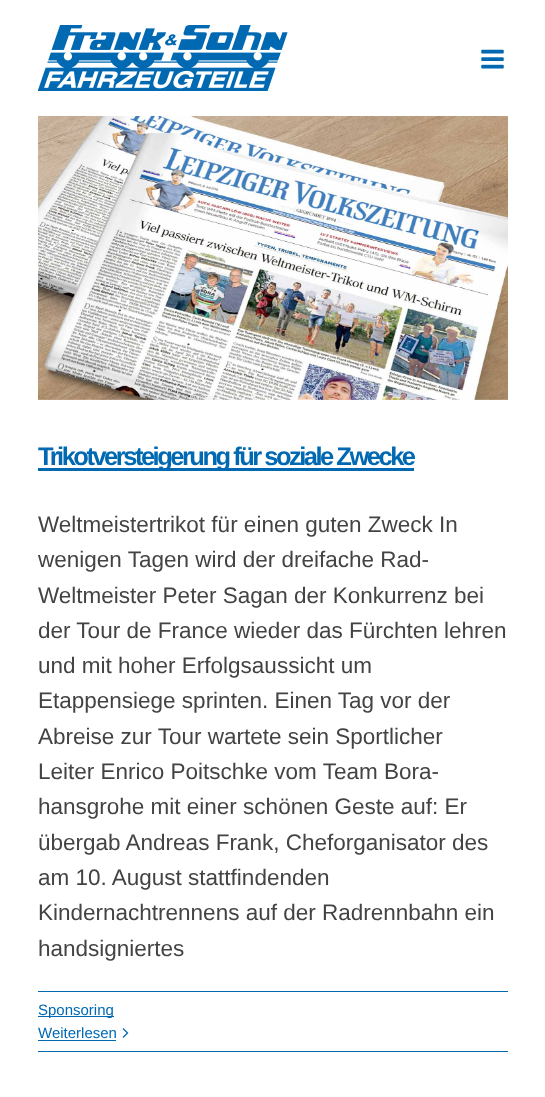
<svg xmlns="http://www.w3.org/2000/svg" xmlns:xlink="http://www.w3.org/1999/xlink" width="545" height="1097" viewBox="0 0 545 1097">
<style>
.cls-1{font:bold 25.5px Liberation Sans;letter-spacing:-2.5px;fill:#0069b2}
.cls-2{font:22.5px Liberation Sans;fill:#434343}
.cls-3{font:15px Liberation Sans;fill:#0069b2}
</style>
<rect width="100%" height="100%" fill="#ffffff"/>
<image xlink:href="image0.png" x="38" y="25" width="250" height="66"/>
<image xlink:href="image1.png" x="481" y="49" width="23" height="20"/>
<image xlink:href="image2.png" x="38" y="116" width="470" height="284"/>
<rect fill="#0069b2" x="38" y="468" width="376" height="3"/>
<rect fill="#0069b2" x="38" y="991" width="470" height="1"/>
<rect fill="#0069b2" x="38" y="1051" width="470" height="1"/>
<rect fill="#0069b2" x="38" y="1016" width="76" height="1"/>
<rect fill="#0069b2" x="38" y="1040" width="78" height="1"/>
<image xlink:href="image3.png" x="122" y="1028" width="7" height="10"/>
<text class="cls-1" x="38" y="465">Trikotversteigerung für soziale Zwecke</text>
<text class="cls-2"><tspan x="38" y="532">Weltmeistertrikot für einen guten Zweck In</tspan><tspan x="38" y="567">wenigen Tagen wird der dreifache Rad-</tspan><tspan x="38" y="603">Weltmeister Peter Sagan der Konkurrenz bei</tspan><tspan x="38" y="638">der Tour de France wieder das Fürchten lehren</tspan><tspan x="38" y="673">und mit hoher Erfolgsaussicht um</tspan><tspan x="38" y="708">Etappensiege sprinten. Einen Tag vor der</tspan><tspan x="38" y="744">Abreise zur Tour wartete sein Sportlicher</tspan><tspan x="38" y="779">Leiter Enrico Poitschke vom Team Bora-</tspan><tspan x="38" y="814">hansgrohe mit einer schönen Geste auf: Er</tspan><tspan x="38" y="850">übergab Andreas Frank, Cheforganisator des</tspan><tspan x="38" y="885">am 10. August stattfindenden</tspan><tspan x="38" y="920">Kindernachtrennens auf der Radrennbahn ein</tspan><tspan x="38" y="956">handsigniertes</tspan></text>
<text class="cls-3"><tspan x="38" y="1015">Sponsoring</tspan><tspan x="38" y="1038">Weiterlesen</tspan></text>
</svg>
